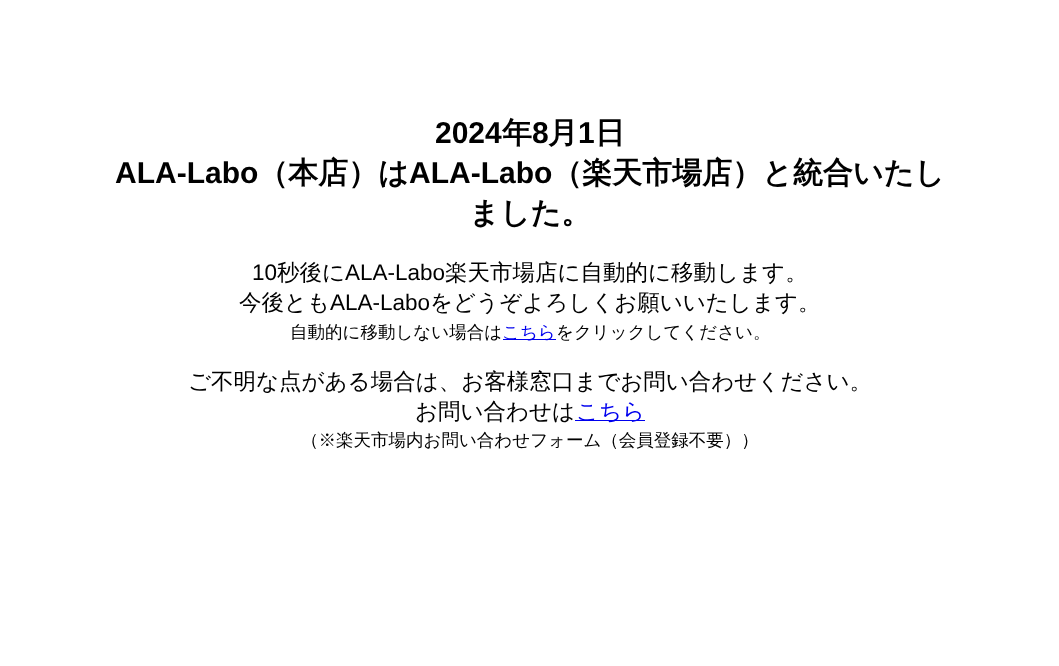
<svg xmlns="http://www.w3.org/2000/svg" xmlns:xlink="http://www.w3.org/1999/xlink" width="1059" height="666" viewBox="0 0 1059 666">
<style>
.cls-1{font:bold 30px Liberation Sans;fill:#000000}
.cls-2{font:bold 30px WenQuanYi Zen Hei;fill:#000000}
.cls-3{font:22.5px Liberation Sans;fill:#000000}
.cls-4{font:500 22.5px WenQuanYi Zen Hei;fill:#000000}
.cls-5{font:500 17.5px WenQuanYi Zen Hei;fill:#000000}
.cls-6{font:500 17.5px WenQuanYi Zen Hei;fill:#0000ee}
.cls-7{font:500 22.5px WenQuanYi Zen Hei;fill:#0000ee}
</style>
<rect width="100%" height="100%" fill="#ffffff"/>
<rect fill="#0000ee" x="503" y="339" width="53" height="1"/>
<rect fill="#0000ee" x="575" y="420" width="70" height="1"/>
<text class="cls-1" x="435" y="143">2024</text>
<text class="cls-2" x="502" y="143">年</text>
<text class="cls-1" x="532" y="143">8</text>
<text class="cls-2" x="548" y="143">月</text>
<text class="cls-1" x="578" y="143">1</text>
<text class="cls-2" x="595" y="143">日</text>
<text class="cls-1" x="115" y="183">ALA-Labo</text>
<text class="cls-2" x="258" y="183">（本店）は</text>
<text class="cls-1" x="409" y="183">ALA-Labo</text>
<text class="cls-2" x="552" y="183">（楽天市場店）と統合いたし</text>
<text class="cls-2" x="469" y="223">ました。</text>
<text class="cls-3" x="252" y="280">10</text>
<text class="cls-4" x="277" y="280">秒後に</text>
<text class="cls-3" x="345" y="280">ALA-Labo</text>
<text class="cls-4" x="445" y="280">楽天市場店に自動的に移動します。</text>
<text class="cls-4" x="239" y="310">今後とも</text>
<text class="cls-3" x="330" y="310">ALA-Labo</text>
<text class="cls-4" x="430" y="310">をどうぞよろしくお願いいたします。</text>
<text class="cls-5" x="290" y="338">自動的に移動しない場合は</text>
<text class="cls-6" x="502" y="338">こちら</text>
<text class="cls-5" x="556" y="338">をクリックしてください。</text>
<text class="cls-4" x="188" y="389">ご不明な点がある場合は、お客様窓口までお問い合わせください。</text>
<text class="cls-4" x="415" y="419">お問い合わせは</text>
<text class="cls-7" x="576" y="419">こちら</text>
<text class="cls-5" x="301" y="446">（※楽天市場内お問い合わせフォーム（会員登録不要））</text>
</svg>
